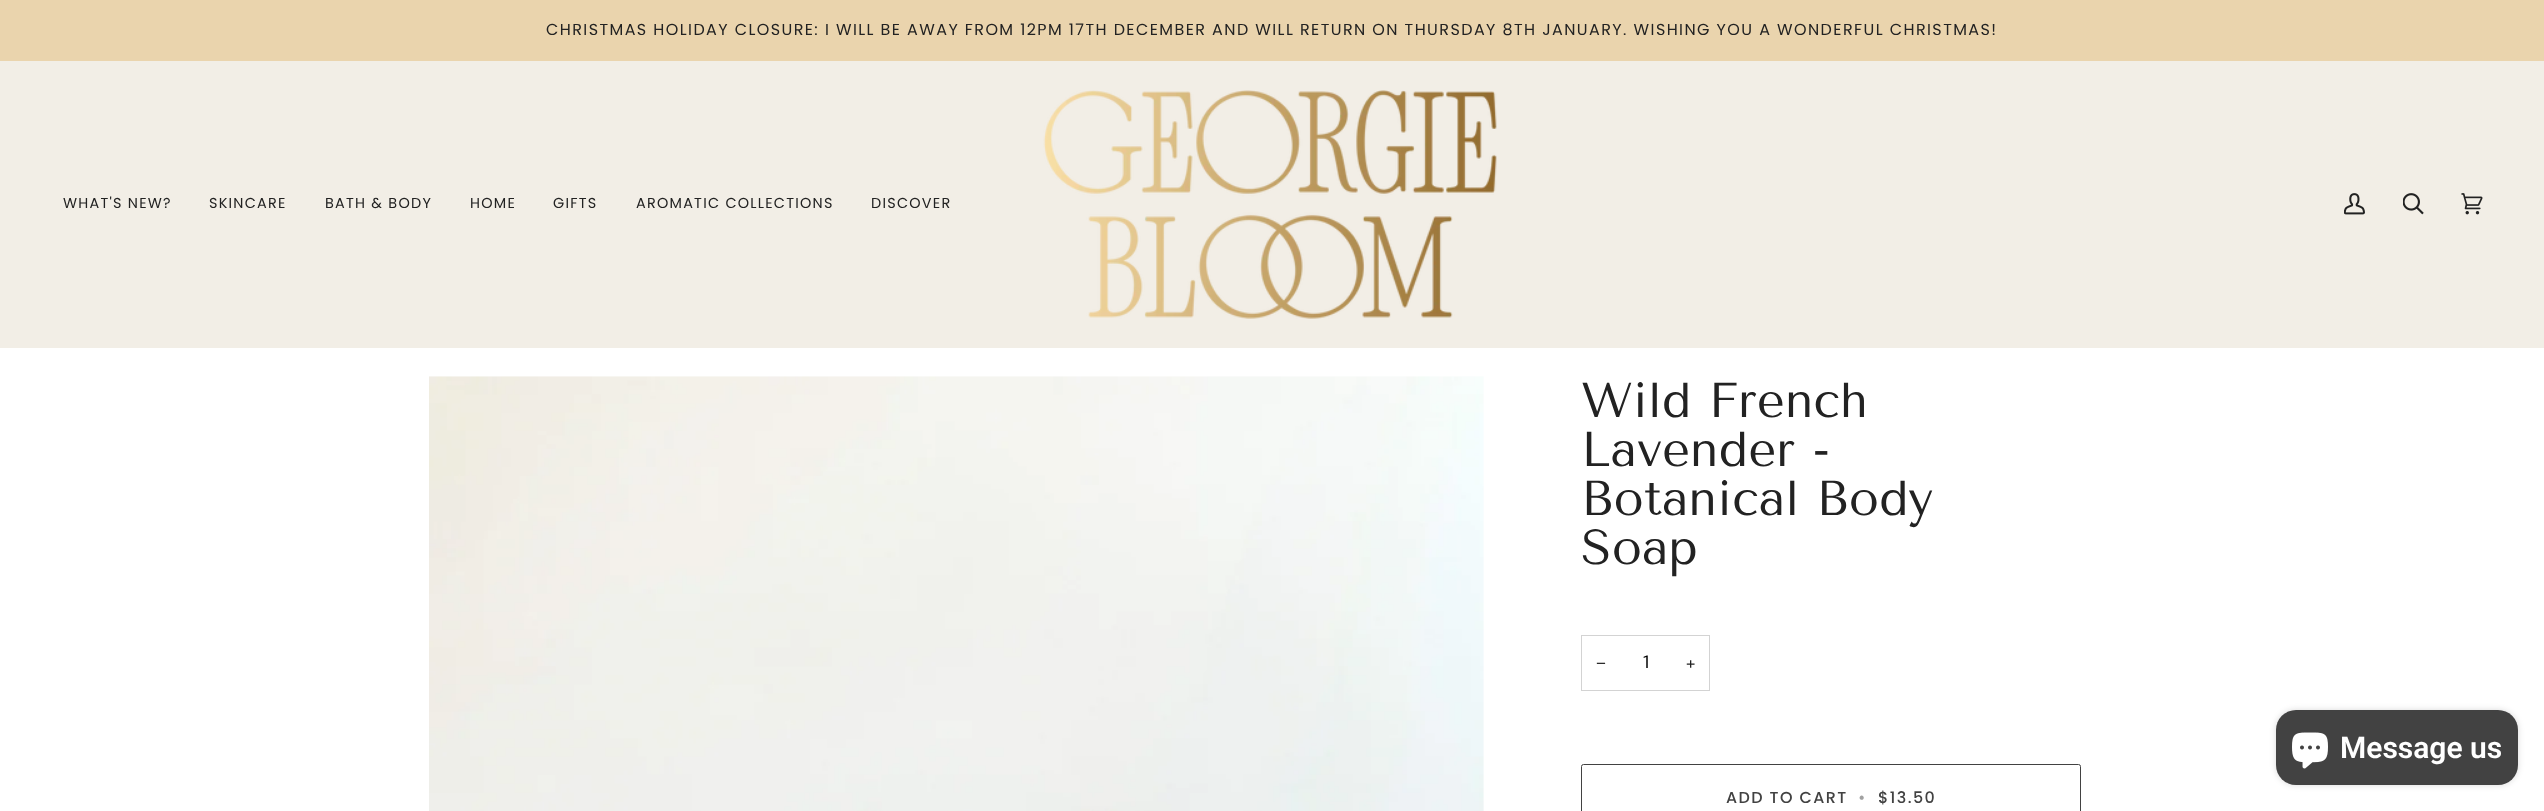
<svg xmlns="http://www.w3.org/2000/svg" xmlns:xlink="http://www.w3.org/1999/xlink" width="2544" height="811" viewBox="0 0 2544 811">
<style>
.cls-1{font:15.95px Poppins;letter-spacing:1.43px;fill:#222222}
.cls-2{font:14.4px Poppins;letter-spacing:1.25px;fill:#222222}
.cls-3{font:49px Tenor Sans;fill:#222222}
.cls-4{font:17px Liberation Sans;fill:#222222}
.cls-5{font:18px DM Sans;fill:#000000}
.cls-6{font:17px DM Sans;fill:#222222}
.cls-7{font:500 15.95px Poppins;letter-spacing:1.43px;fill:#424242}
.cls-8{font:500 15.95px Poppins;letter-spacing:1.43px;fill:#a1a1a1}
.cls-9{font:600 30px Roboto;fill:#ffffff}
</style>
<rect width="100%" height="100%" fill="#ffffff"/>
<rect fill="#ead4ad" x="0" y="0" width="2544" height="61"/>
<rect fill="#f2eee6" x="0" y="61" width="2544" height="287"/>
<image xlink:href="image0.png" x="1043" y="90" width="454" height="229"/>
<image xlink:href="image1.png" x="2344" y="193" width="21" height="22"/>
<image xlink:href="image2.png" x="2403" y="193" width="21" height="22"/>
<image xlink:href="image3.png" x="2461" y="193" width="22" height="22"/>
<image xlink:href="image4.png" x="429" y="376" width="1055" height="435"/>
<rect fill="none" stroke="#d3d3d3" x="1581.5" y="635.5" width="128" height="55"/>
<rect fill="none" stroke="#424242" x="1581.5" y="764.5" width="499" height="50" rx="2"/>
<rect fill="#000000" fill-opacity="0.15" filter="blur(3px)" x="2276" y="710" width="242" height="75" rx="20"/>
<rect fill="#424242" x="2276" y="710" width="242" height="75" rx="20"/>
<image xlink:href="image5.png" x="2292" y="732" width="36" height="37"/>
<text class="cls-1" x="546" y="35">CHRISTMAS HOLIDAY CLOSURE: I WILL BE AWAY FROM 12PM 17TH DECEMBER AND WILL RETURN ON THURSDAY 8TH JANUARY. WISHING YOU A WONDERFUL CHRISTMAS!</text>
<text class="cls-2" x="63" y="208">WHAT'S NEW?</text>
<text class="cls-2" x="209" y="208">SKINCARE</text>
<text class="cls-2" x="325" y="208">BATH &amp; BODY</text>
<text class="cls-2" x="470" y="208">HOME</text>
<text class="cls-2" x="553" y="208">GIFTS</text>
<text class="cls-2" x="636" y="208">AROMATIC COLLECTIONS</text>
<text class="cls-2" x="871" y="208">DISCOVER</text>
<text class="cls-3"><tspan x="1581" y="417">Wild French</tspan><tspan x="1581" y="466">Lavender -</tspan><tspan x="1581" y="515">Botanical Body</tspan><tspan x="1581" y="564">Soap</tspan></text>
<text class="cls-4" x="1596" y="669">−</text>
<text class="cls-5" x="1643" y="668">1</text>
<text class="cls-6" x="1686" y="669">+</text>
<text class="cls-7" x="1726" y="803">ADD TO CART</text>
<text class="cls-8" x="1858" y="803">•</text>
<text class="cls-7" x="1878" y="803">$13.50</text>
<text class="cls-9" x="2340" y="758">Message us</text>
</svg>
